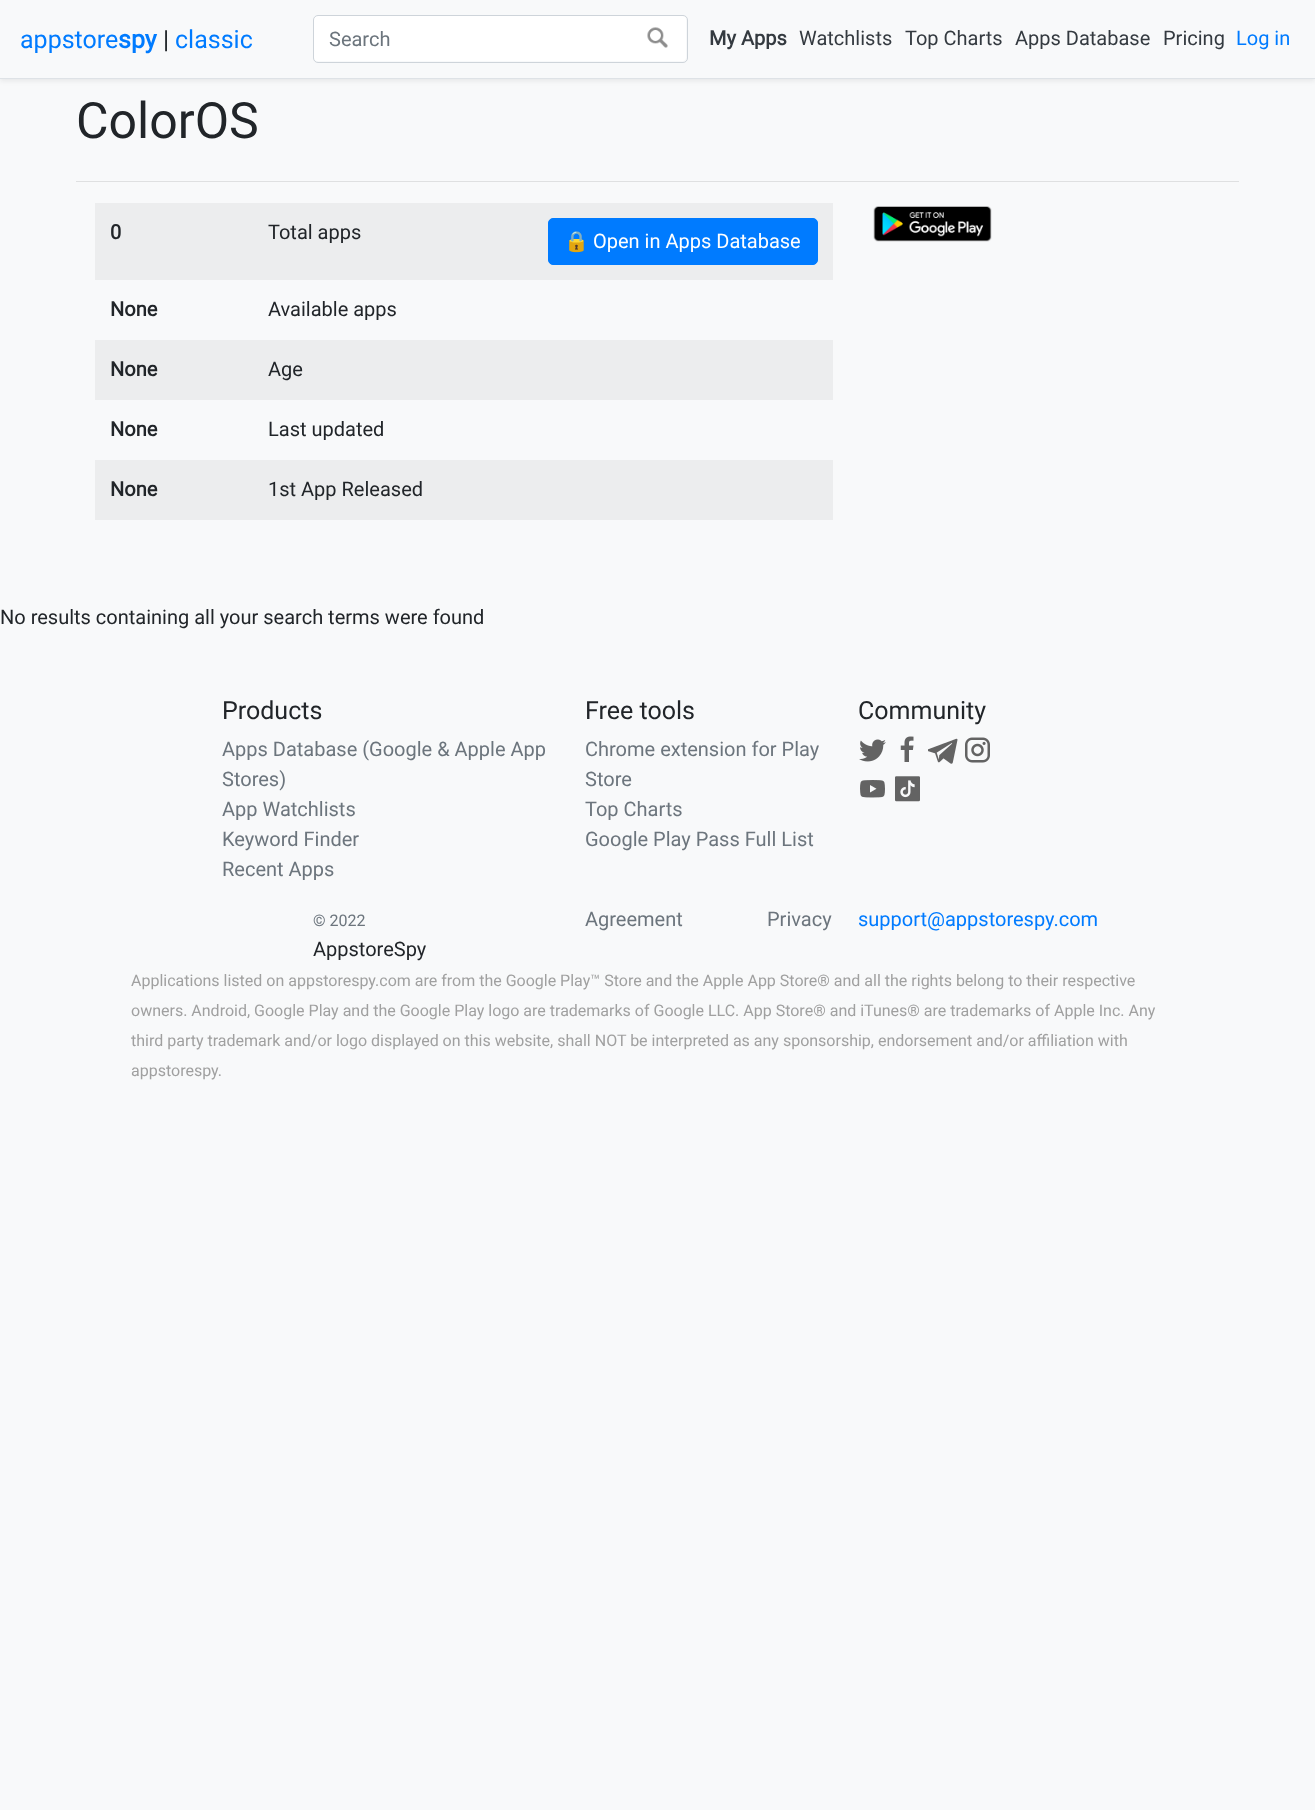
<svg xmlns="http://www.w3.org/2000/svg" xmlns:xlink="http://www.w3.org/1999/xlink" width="1315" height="1810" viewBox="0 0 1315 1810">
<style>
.cls-1{font:25px Roboto;fill:#007bff}
.cls-2{font:bold 25px Roboto;fill:#007bff}
.cls-3{font:25px Roboto;fill:#212529}
.cls-4{font:20px Roboto;fill:#6c757d}
.cls-5{font:bold 20px Roboto;fill:#343a40}
.cls-6{font:20px Roboto;fill:#343a40}
.cls-7{font:20px Roboto;fill:#007bff}
.cls-8{font:50px Roboto;fill:#212529}
.cls-9{font:bold 20px Roboto;fill:#212529}
.cls-10{font:20px Roboto;fill:#212529}
.cls-11{font:20px Noto Color Emoji;fill:#ffffff}
.cls-12{font:20px Roboto;fill:#ffffff}
.cls-13{font:16px Roboto;fill:#6c757d}
.cls-14{font:16px Roboto;fill:#a0a0a0}
</style>
<rect width="100%" height="100%" fill="#f8f9fa"/>
<rect fill="#000000" fill-opacity="0.07" filter="blur(2.5px)" x="0" y="3" width="1315" height="78"/>
<rect fill="#f8f9fa" x="0" y="0" width="1315" height="78"/>
<rect fill="#dee2e6" x="0" y="78" width="1315" height="1"/>
<rect fill="#ffffff" x="314" y="16" width="372" height="45" rx="4"/>
<rect fill="none" stroke="#ced4da" x="313.5" y="15.5" width="374" height="47" rx="4.5"/>
<image xlink:href="image0.png" x="647" y="27" width="21" height="21"/>
<rect fill="#dfe0e1" x="76" y="181" width="1163" height="1"/>
<rect fill="#ecedee" x="95" y="203" width="738" height="77"/>
<rect fill="#007bff" stroke="#007bff" x="548.5" y="218.5" width="269" height="46" rx="4.5"/>
<rect fill="#ecedee" x="95" y="340" width="738" height="60"/>
<rect fill="#ecedee" x="95" y="460" width="738" height="60"/>
<image xlink:href="image1.png" x="873" y="206" width="119" height="36"/>
<image xlink:href="image2.png" x="859" y="739" width="27" height="23"/>
<image xlink:href="image3.png" x="900" y="736" width="14" height="26"/>
<image xlink:href="image4.png" x="928" y="738" width="30" height="26"/>
<image xlink:href="image5.png" x="965" y="737" width="25" height="26"/>
<image xlink:href="image6.png" x="860" y="780" width="25" height="18"/>
<image xlink:href="image7.png" x="895" y="776" width="25" height="26"/>
<text class="cls-1" x="20" y="48">appstore</text>
<text class="cls-2" x="118" y="48">spy</text>
<text class="cls-3" x="163" y="48">|</text>
<text class="cls-1" x="175" y="48">classic</text>
<text class="cls-4" x="329" y="46">Search</text>
<text class="cls-5" x="709" y="45">My Apps</text>
<text class="cls-6" x="799" y="45">Watchlists</text>
<text class="cls-6" x="905" y="45">Top Charts</text>
<text class="cls-6" x="1015" y="45">Apps Database</text>
<text class="cls-6" x="1163" y="45">Pricing</text>
<text class="cls-7" x="1236" y="45">Log in</text>
<text class="cls-8" x="76" y="138">ColorOS</text>
<text class="cls-9" x="110" y="239">0</text>
<text class="cls-10" x="268" y="239">Total apps</text>
<text class="cls-11" x="564" y="248">🔒</text>
<text class="cls-12" x="593" y="248">Open in Apps Database</text>
<text class="cls-9" x="110" y="316">None</text>
<text class="cls-10" x="268" y="316">Available apps</text>
<text class="cls-9" x="110" y="376">None</text>
<text class="cls-10" x="268" y="376">Age</text>
<text class="cls-9" x="110" y="436">None</text>
<text class="cls-10" x="268" y="436">Last updated</text>
<text class="cls-9" x="110" y="496">None</text>
<text class="cls-10" x="268" y="496">1st App Released</text>
<text class="cls-10" x="0" y="624">No results containing all your search terms were found</text>
<text class="cls-3" x="222" y="719">Products</text>
<text class="cls-4"><tspan x="222" y="756">Apps Database (Google &amp; Apple App</tspan><tspan x="222" y="786">Stores)</tspan><tspan x="222" y="816">App Watchlists</tspan><tspan x="222" y="846">Keyword Finder</tspan><tspan x="222" y="876">Recent Apps</tspan></text>
<text class="cls-3" x="585" y="719">Free tools</text>
<text class="cls-4"><tspan x="585" y="756">Chrome extension for Play</tspan><tspan x="585" y="786">Store</tspan><tspan x="585" y="816">Top Charts</tspan><tspan x="585" y="846">Google Play Pass Full List</tspan></text>
<text class="cls-3" x="858" y="719">Community</text>
<text class="cls-13" x="313" y="926">© 2022</text>
<text class="cls-10" x="313" y="956">AppstoreSpy</text>
<text class="cls-4" x="585" y="926">Agreement</text>
<text class="cls-4" x="767" y="926">Privacy</text>
<text class="cls-7" x="858" y="926">support@appstorespy.com</text>
<text class="cls-14"><tspan x="131" y="986">Applications listed on appstorespy.com are from the Google Play™ Store and the Apple App Store® and all the rights belong to their respective</tspan><tspan x="131" y="1016">owners. Android, Google Play and the Google Play logo are trademarks of Google LLC. App Store® and iTunes® are trademarks of Apple Inc. Any</tspan><tspan x="131" y="1046">third party trademark and/or logo displayed on this website, shall NOT be interpreted as any sponsorship, endorsement and/or affiliation with</tspan><tspan x="131" y="1076">appstorespy.</tspan></text>
</svg>
